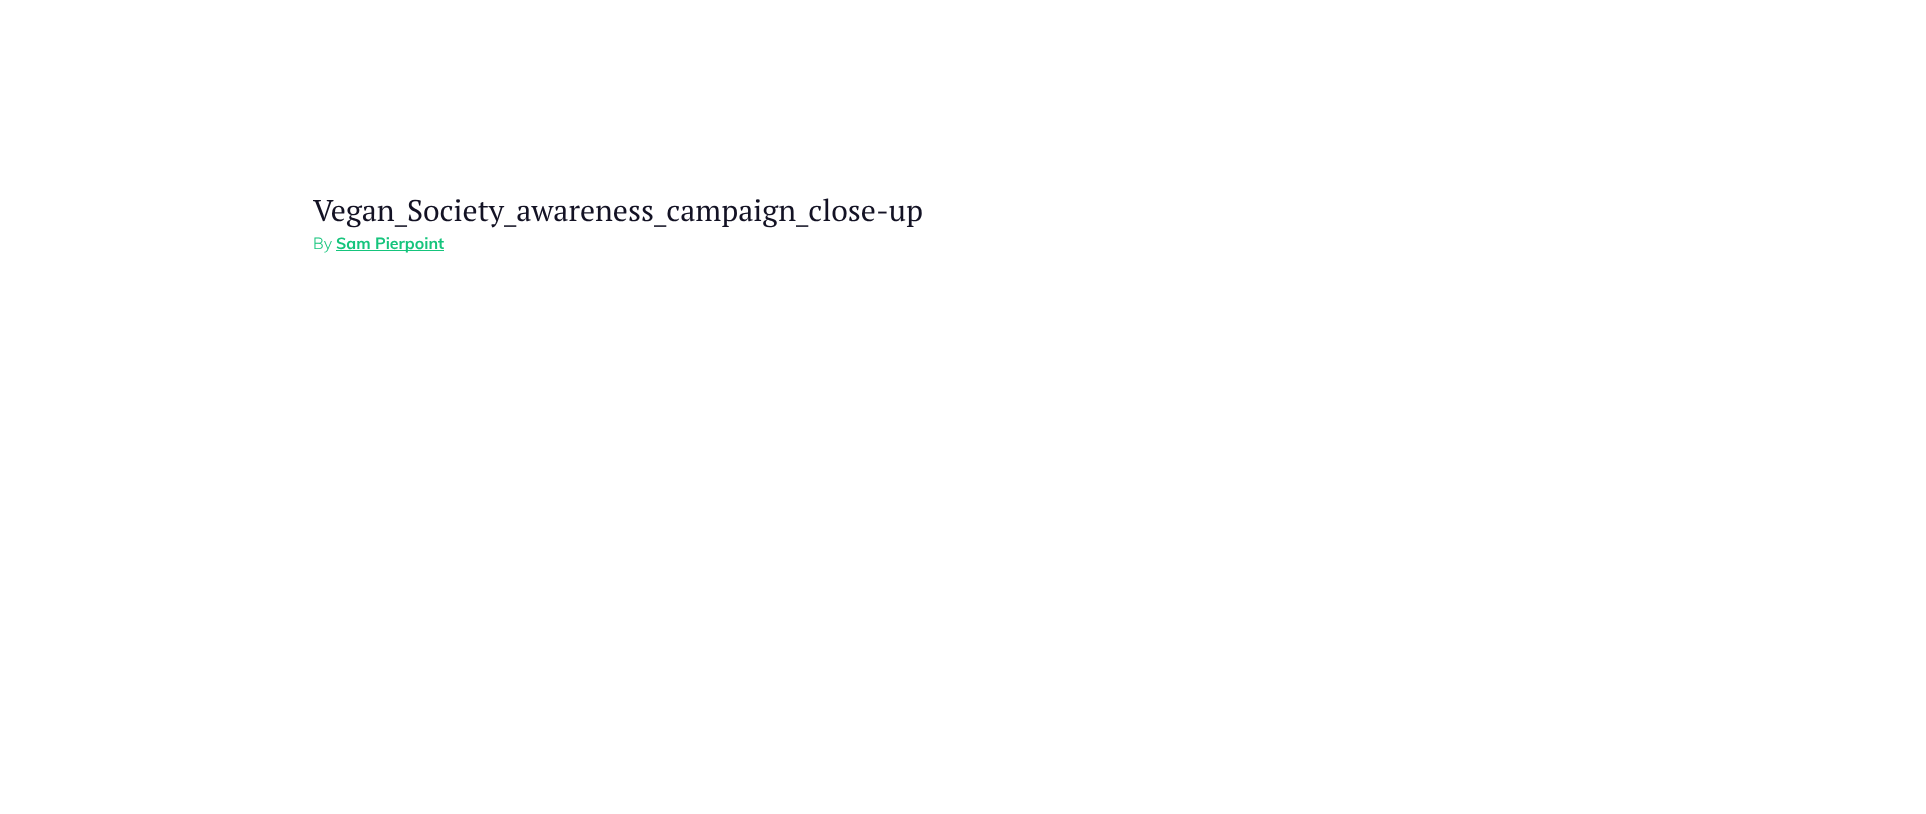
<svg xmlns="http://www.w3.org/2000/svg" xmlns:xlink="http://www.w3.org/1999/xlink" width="1926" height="814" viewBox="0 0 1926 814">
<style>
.cls-1{font:30px PT Serif;fill:#131224}
.cls-2{font:300 16px Muli;fill:#15c47c}
.cls-3{font:bold 16px Muli;fill:#15c47c}
</style>
<rect width="100%" height="100%" fill="#ffffff"/>
<rect fill="#15c47c" x="336" y="250" width="108" height="1"/>
<text class="cls-1" x="313" y="221">Vegan_Society_awareness_campaign_close-up</text>
<text class="cls-2" x="313" y="249">By</text>
<text class="cls-3" x="336" y="249">Sam Pierpoint</text>
</svg>
